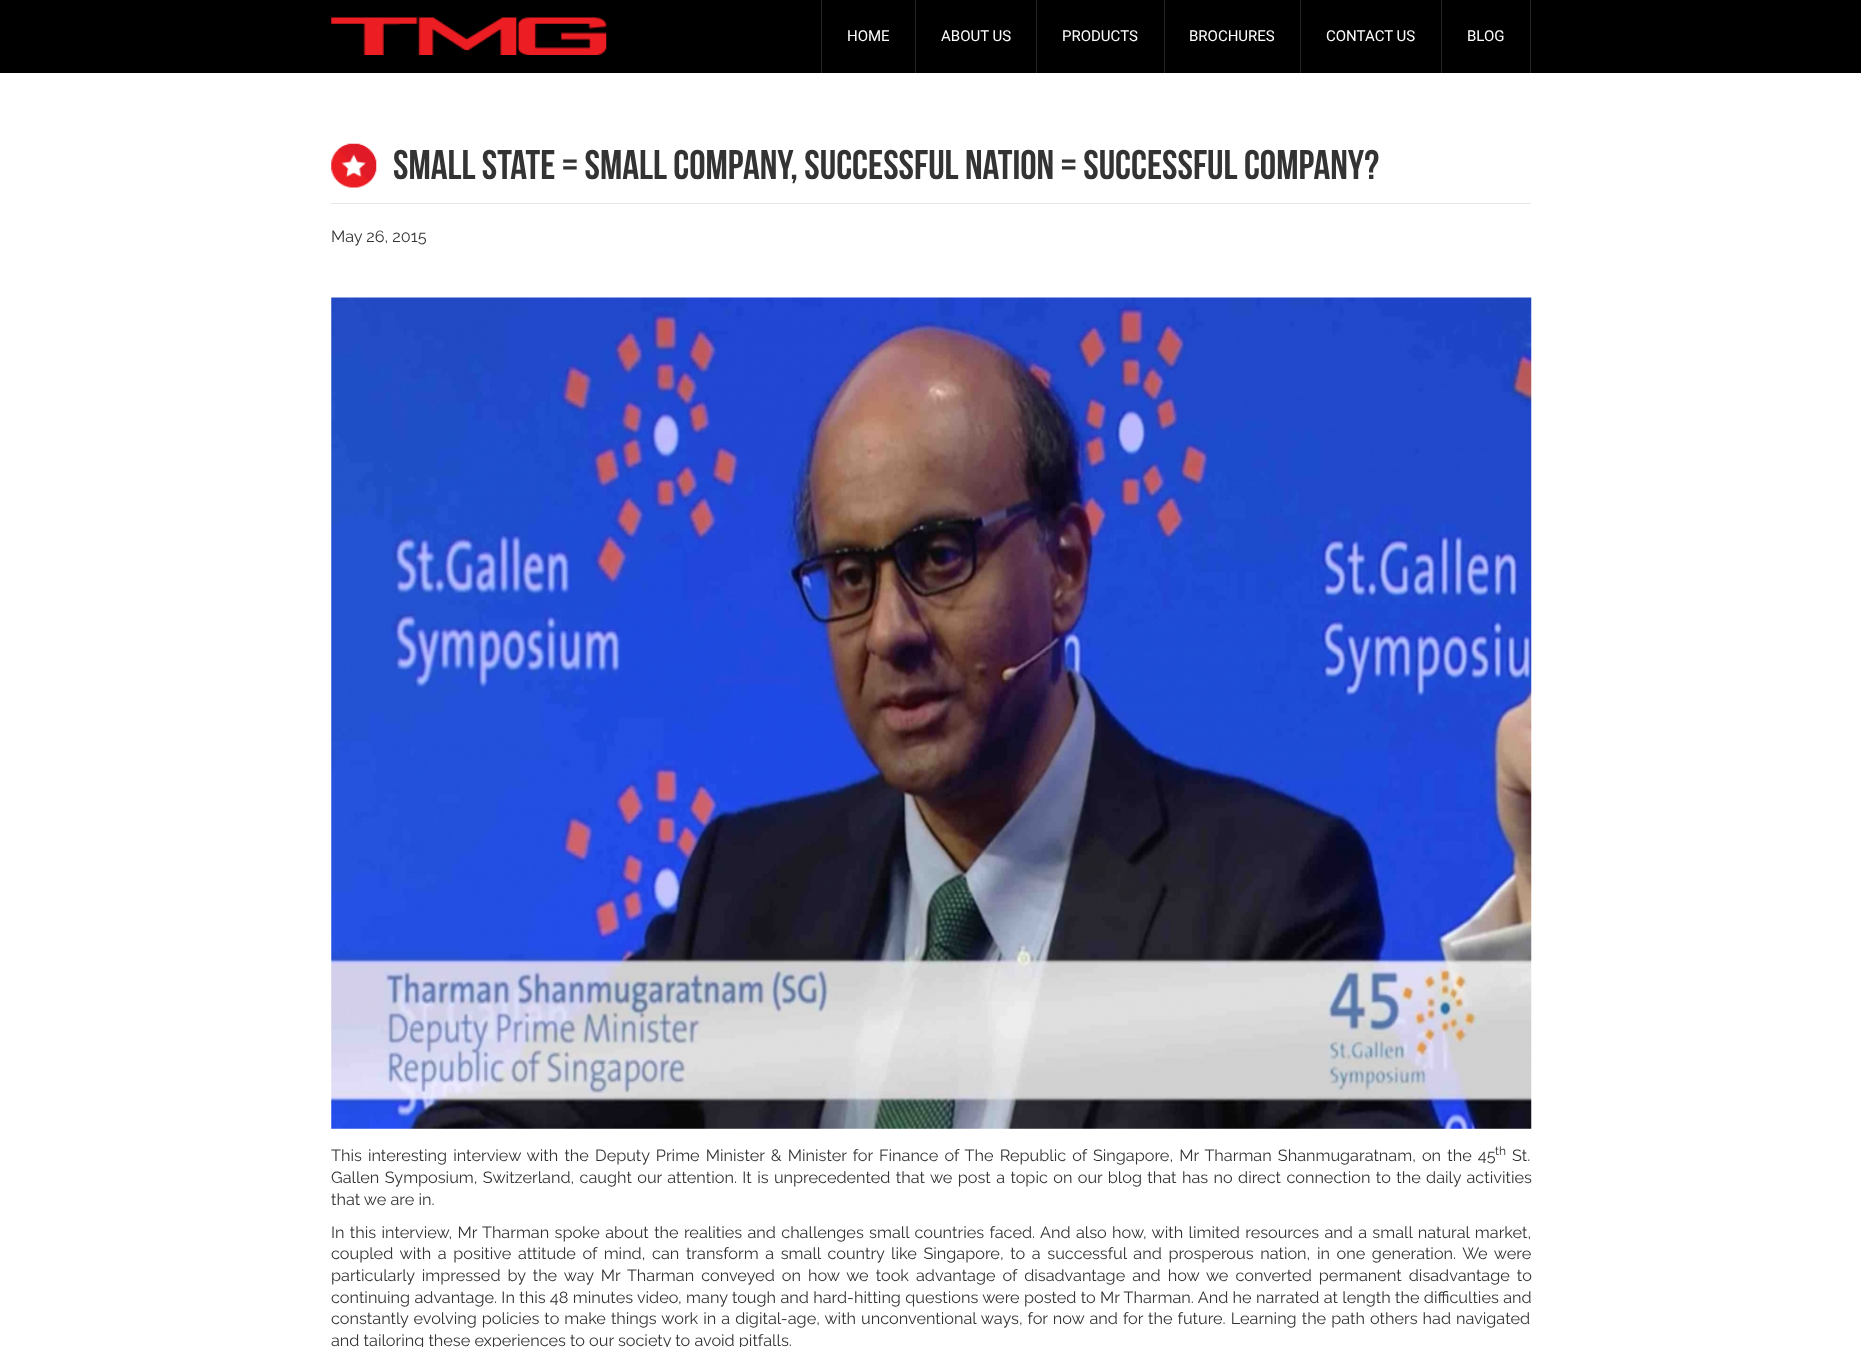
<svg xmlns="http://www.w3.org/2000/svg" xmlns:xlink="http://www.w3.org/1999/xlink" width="1861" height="1347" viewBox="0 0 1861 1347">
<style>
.cls-1{font:15px Roboto;fill:#ffffff}
.cls-2{font:41.25px Bebas Neue;fill:#333333}
.cls-3{font:16.25px Raleway;fill:#333333}
.cls-4{font:12px Raleway;fill:#333333}
</style>
<rect width="100%" height="100%" fill="#ffffff"/>
<rect fill="#000000" x="0" y="0" width="1861" height="73"/>
<image xlink:href="image0.png" x="331" y="17" width="276" height="38"/>
<rect fill="#262626" x="821" y="0" width="1" height="73"/>
<rect fill="#262626" x="915" y="0" width="1" height="73"/>
<rect fill="#262626" x="1036" y="0" width="1" height="73"/>
<rect fill="#262626" x="1164" y="0" width="1" height="73"/>
<rect fill="#262626" x="1300" y="0" width="1" height="73"/>
<rect fill="#262626" x="1530" y="0" width="1" height="73"/>
<rect fill="#262626" x="1441" y="0" width="1" height="73"/>
<image xlink:href="image1.png" x="331" y="143" width="46" height="45"/>
<rect fill="#e6e6e6" x="331" y="203" width="1200" height="1"/>
<image xlink:href="image2.png" x="331" y="297" width="1201" height="832"/>
<text class="cls-1" x="847" y="41">HOME</text>
<text class="cls-1" x="941" y="41">ABOUT US</text>
<text class="cls-1" x="1062" y="41">PRODUCTS</text>
<text class="cls-1" x="1189" y="41">BROCHURES</text>
<text class="cls-1" x="1326" y="41">CONTACT US</text>
<text class="cls-1" x="1467" y="41">BLOG</text>
<text class="cls-2" x="393" y="179">Small State = Small Company, Successful Nation = Successful Company?</text>
<text class="cls-3" x="331" y="242">May 26, 2015</text>
<text class="cls-3" x="331" y="1161" word-spacing="2">This interesting interview with the Deputy Prime Minister &amp; Minister for Finance of The Republic of Singapore, Mr Tharman Shanmugaratnam, on the 45</text>
<text class="cls-4" x="1495" y="1155">th</text>
<text class="cls-3" x="1512" y="1161">St.</text>
<text class="cls-3"><tspan x="331" y="1183" word-spacing="1.25">Gallen Symposium, Switzerland, caught our attention. It is unprecedented that we post a topic on our blog that has no direct connection to the daily activities</tspan><tspan x="331" y="1205">that we are in.</tspan></text>
<text class="cls-3"><tspan x="331" y="1238" word-spacing="1.2">In this interview, Mr Tharman spoke about the realities and challenges small countries faced. And also how, with limited resources and a small natural market,</tspan><tspan x="331" y="1259" word-spacing="2.5">coupled with a positive attitude of mind, can transform a small country like Singapore, to a successful and prosperous nation, in one generation. We were</tspan><tspan x="331" y="1281" word-spacing="2.9">particularly impressed by the way Mr Tharman conveyed on how we took advantage of disadvantage and how we converted permanent disadvantage to</tspan><tspan x="331" y="1303" word-spacing="0.2">continuing advantage. In this 48 minutes video, many tough and hard-hitting questions were posted to Mr Tharman. And he narrated at length the difficulties and</tspan><tspan x="331" y="1324" word-spacing="0.9">constantly evolving policies to make things work in a digital-age, with unconventional ways, for now and for the future. Learning the path others had navigated</tspan><tspan x="331" y="1346">and tailoring these experiences to our society to avoid pitfalls.</tspan></text>
</svg>
